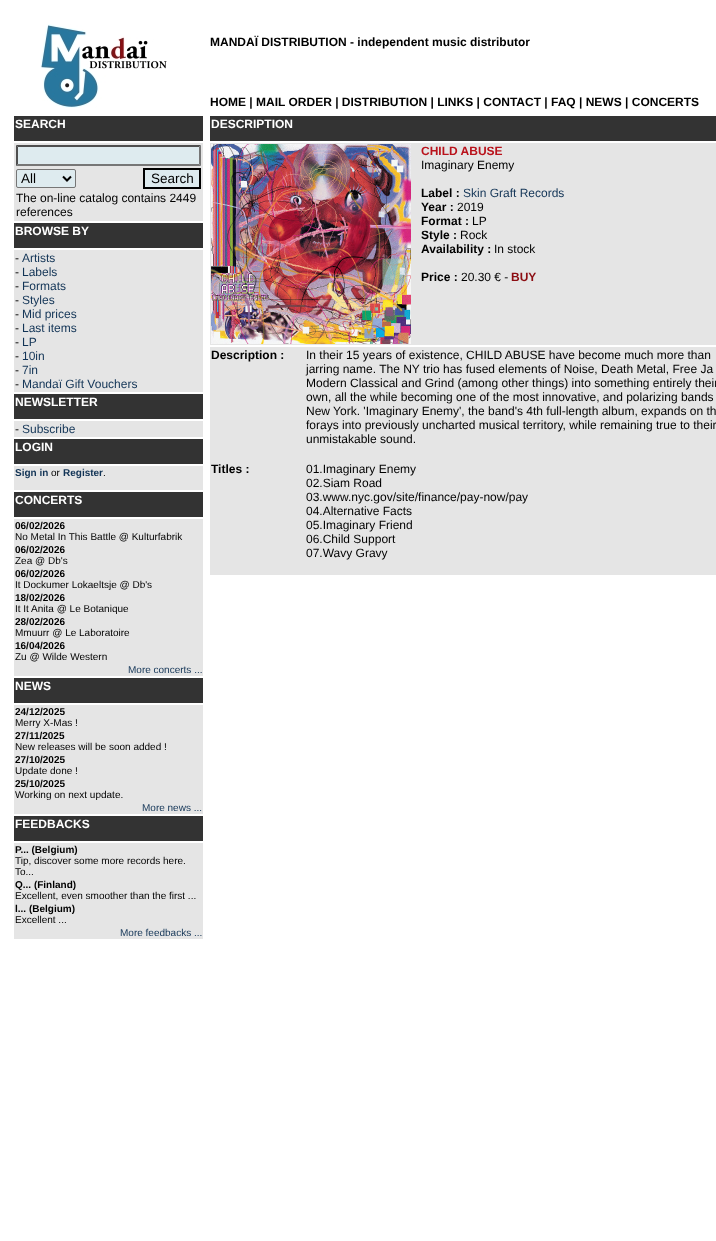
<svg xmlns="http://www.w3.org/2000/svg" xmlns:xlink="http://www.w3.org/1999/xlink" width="716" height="1241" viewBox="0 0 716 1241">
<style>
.cls-1{font:bold 12px Liberation Sans;fill:#000000}
.cls-2{font:bold 12px Liberation Sans;fill:#ffffff}
.cls-3{font:13.5px Liberation Sans;fill:#000000}
.cls-4{font:12px Liberation Sans;fill:#000000}
.cls-5{font:12px Liberation Sans;fill:#123456}
.cls-6{font:bold 10px Liberation Sans;fill:#123456}
.cls-7{font:10px Liberation Sans;fill:#000000}
.cls-8{font:bold 10px Liberation Sans;fill:#000000}
.cls-9{font:10px Liberation Sans;fill:#123456}
.cls-10{font:bold 12px Liberation Sans;fill:#b9121b}
.cls-11{font:bold 12px Liberation Sans;fill:#8c0d12}
</style>
<rect width="100%" height="100%" fill="#ffffff"/>
<image xlink:href="image0.png" x="40" y="24" width="127" height="84"/>
<rect fill="#333333" x="14" y="116" width="189" height="25"/>
<rect fill="#e5e5e5" x="14" y="143" width="189" height="78"/>
<rect fill="#deebef" x="16" y="145" width="185" height="21"/>
<path fill="#4f4f4f" d="M16 145H201L199 147H18Z"/>
<path fill="#767676" d="M201 145V166L199 164V147Z"/>
<path fill="#767676" d="M201 166H16L18 164H199Z"/>
<path fill="#4f4f4f" d="M16 166V145L18 147V164Z"/>
<rect fill="#deebef" stroke="#767676" x="16.5" y="169.5" width="59" height="18" rx="1.5"/>
<path fill="none" stroke="#000000" stroke-width="2" d="M63 176.5L67 180.5L71 176.5"/>
<rect fill="#deebef" stroke="#000000" stroke-width="2" x="144" y="169" width="56" height="19"/>
<rect fill="#333333" x="14" y="223" width="189" height="25"/>
<rect fill="#e5e5e5" x="14" y="250" width="189" height="142"/>
<rect fill="#333333" x="14" y="394" width="189" height="25"/>
<rect fill="#e5e5e5" x="14" y="421" width="189" height="16"/>
<rect fill="#333333" x="14" y="439" width="189" height="25"/>
<rect fill="#e5e5e5" x="14" y="466" width="189" height="24"/>
<rect fill="#333333" x="14" y="492" width="189" height="25"/>
<rect fill="#e5e5e5" x="14" y="519" width="189" height="157"/>
<rect fill="#333333" x="14" y="678" width="189" height="25"/>
<rect fill="#e5e5e5" x="14" y="705" width="189" height="109"/>
<rect fill="#333333" x="14" y="816" width="189" height="25"/>
<rect fill="#e5e5e5" x="14" y="843" width="189" height="96"/>
<rect fill="#333333" x="210" y="116" width="506" height="25"/>
<rect fill="#e5e5e5" x="210" y="143" width="506" height="202"/>
<image xlink:href="image1.png" x="211" y="144" width="200" height="200"/>
<rect fill="#e5e5e5" x="210" y="347" width="506" height="228"/>
<text class="cls-1" x="210" y="46">MANDAÏ DISTRIBUTION - independent music distributor</text>
<text class="cls-1" x="210" y="106">HOME | MAIL ORDER | DISTRIBUTION | LINKS | CONTACT | FAQ | NEWS | CONCERTS</text>
<text class="cls-2" x="15" y="128">SEARCH</text>
<text class="cls-3" x="21" y="183">All</text>
<text class="cls-3" x="151" y="183">Search</text>
<text class="cls-4"><tspan x="16" y="202">The on-line catalog contains 2449</tspan><tspan x="16" y="216">references</tspan></text>
<text class="cls-2" x="15" y="235">BROWSE BY</text>
<text class="cls-4" x="15" y="262">-</text>
<text class="cls-5" x="22" y="262">Artists</text>
<text class="cls-4" x="15" y="276">-</text>
<text class="cls-5" x="22" y="276">Labels</text>
<text class="cls-4" x="15" y="290">-</text>
<text class="cls-5" x="22" y="290">Formats</text>
<text class="cls-4" x="15" y="304">-</text>
<text class="cls-5" x="22" y="304">Styles</text>
<text class="cls-4" x="15" y="318">-</text>
<text class="cls-5" x="22" y="318">Mid prices</text>
<text class="cls-4" x="15" y="332">-</text>
<text class="cls-5" x="22" y="332">Last items</text>
<text class="cls-4" x="15" y="346">-</text>
<text class="cls-5" x="22" y="346">LP</text>
<text class="cls-4" x="15" y="360">-</text>
<text class="cls-5" x="22" y="360">10in</text>
<text class="cls-4" x="15" y="374">-</text>
<text class="cls-5" x="22" y="374">7in</text>
<text class="cls-4" x="15" y="388">-</text>
<text class="cls-5" x="22" y="388">Mandaï Gift Vouchers</text>
<text class="cls-2" x="15" y="406">NEWSLETTER</text>
<text class="cls-4" x="15" y="433">-</text>
<text class="cls-5" x="22" y="433">Subscribe</text>
<text class="cls-2" x="15" y="451">LOGIN</text>
<text class="cls-6" x="15" y="476">Sign in</text>
<text class="cls-7" x="51" y="476">or</text>
<text class="cls-6" x="63" y="476">Register</text>
<text class="cls-7" x="103" y="476">.</text>
<text class="cls-2" x="15" y="504">CONCERTS</text>
<text class="cls-8" x="15" y="529">06/02/2026</text>
<text class="cls-7" x="15" y="540">No Metal In This Battle @ Kulturfabrik</text>
<text class="cls-8" x="15" y="553">06/02/2026</text>
<text class="cls-7" x="15" y="564">Zea @ Db's</text>
<text class="cls-8" x="15" y="577">06/02/2026</text>
<text class="cls-7" x="15" y="588">It Dockumer Lokaeltsje @ Db's</text>
<text class="cls-8" x="15" y="601">18/02/2026</text>
<text class="cls-7" x="15" y="612">It It Anita @ Le Botanique</text>
<text class="cls-8" x="15" y="625">28/02/2026</text>
<text class="cls-7" x="15" y="636">Mmuurr @ Le Laboratoire</text>
<text class="cls-8" x="15" y="649">16/04/2026</text>
<text class="cls-7" x="15" y="660">Zu @ Wilde Western</text>
<text class="cls-9" x="128" y="673">More concerts ...</text>
<text class="cls-2" x="15" y="690">NEWS</text>
<text class="cls-8" x="15" y="715">24/12/2025</text>
<text class="cls-7" x="15" y="726">Merry X-Mas !</text>
<text class="cls-8" x="15" y="739">27/11/2025</text>
<text class="cls-7" x="15" y="750">New releases will be soon added !</text>
<text class="cls-8" x="15" y="763">27/10/2025</text>
<text class="cls-7" x="15" y="774">Update done !</text>
<text class="cls-8" x="15" y="787">25/10/2025</text>
<text class="cls-7" x="15" y="798">Working on next update.</text>
<text class="cls-9" x="142" y="811">More news ...</text>
<text class="cls-2" x="15" y="828">FEEDBACKS</text>
<text class="cls-8" x="15" y="853">P... (Belgium)</text>
<text class="cls-7"><tspan x="15" y="864">Tip, discover some more records here.</tspan><tspan x="15" y="875">To...</tspan></text>
<text class="cls-8" x="15" y="888">Q... (Finland)</text>
<text class="cls-7" x="15" y="899">Excellent, even smoother than the first ...</text>
<text class="cls-8" x="15" y="912">l... (Belgium)</text>
<text class="cls-7" x="15" y="923">Excellent ...</text>
<text class="cls-9" x="120" y="936">More feedbacks ...</text>
<text class="cls-2" x="211" y="128">DESCRIPTION</text>
<text class="cls-10" x="421" y="155">CHILD ABUSE</text>
<text class="cls-4" x="421" y="169">Imaginary Enemy</text>
<text class="cls-1" x="421" y="197">Label :</text>
<text class="cls-5" x="463" y="197">Skin Graft Records</text>
<text class="cls-1" x="421" y="211">Year :</text>
<text class="cls-4" x="457" y="211">2019</text>
<text class="cls-1" x="421" y="225">Format :</text>
<text class="cls-4" x="472" y="225">LP</text>
<text class="cls-1" x="421" y="239">Style :</text>
<text class="cls-4" x="460" y="239">Rock</text>
<text class="cls-1" x="421" y="253">Availability :</text>
<text class="cls-4" x="494" y="253">In stock</text>
<text class="cls-1" x="421" y="281">Price :</text>
<text class="cls-4" x="461" y="281">20.30 € -</text>
<text class="cls-11" x="511" y="281">BUY</text>
<text class="cls-1" x="211" y="359">Description :</text>
<text class="cls-4"><tspan x="306" y="359">In their 15 years of existence, CHILD ABUSE have become much more than</tspan><tspan x="306" y="373">jarring name. The NY trio has fused elements of Noise, Death Metal, Free Ja</tspan><tspan x="306" y="387">Modern Classical and Grind (among other things) into something entirely their</tspan><tspan x="306" y="401">own, all the while becoming one of the most innovative, and polarizing bands</tspan><tspan x="306" y="415">New York. 'Imaginary Enemy', the band's 4th full-length album, expands on th</tspan><tspan x="306" y="429">forays into previously uncharted musical territory, while remaining true to their</tspan><tspan x="306" y="443">unmistakable sound.</tspan></text>
<text class="cls-1" x="211" y="473">Titles :</text>
<text class="cls-4"><tspan x="306" y="473">01.Imaginary Enemy</tspan><tspan x="306" y="487">02.Siam Road</tspan><tspan x="306" y="501">03.www.nyc.gov/site/finance/pay-now/pay</tspan><tspan x="306" y="515">04.Alternative Facts</tspan><tspan x="306" y="529">05.Imaginary Friend</tspan><tspan x="306" y="543">06.Child Support</tspan><tspan x="306" y="557">07.Wavy Gravy</tspan></text>
</svg>
